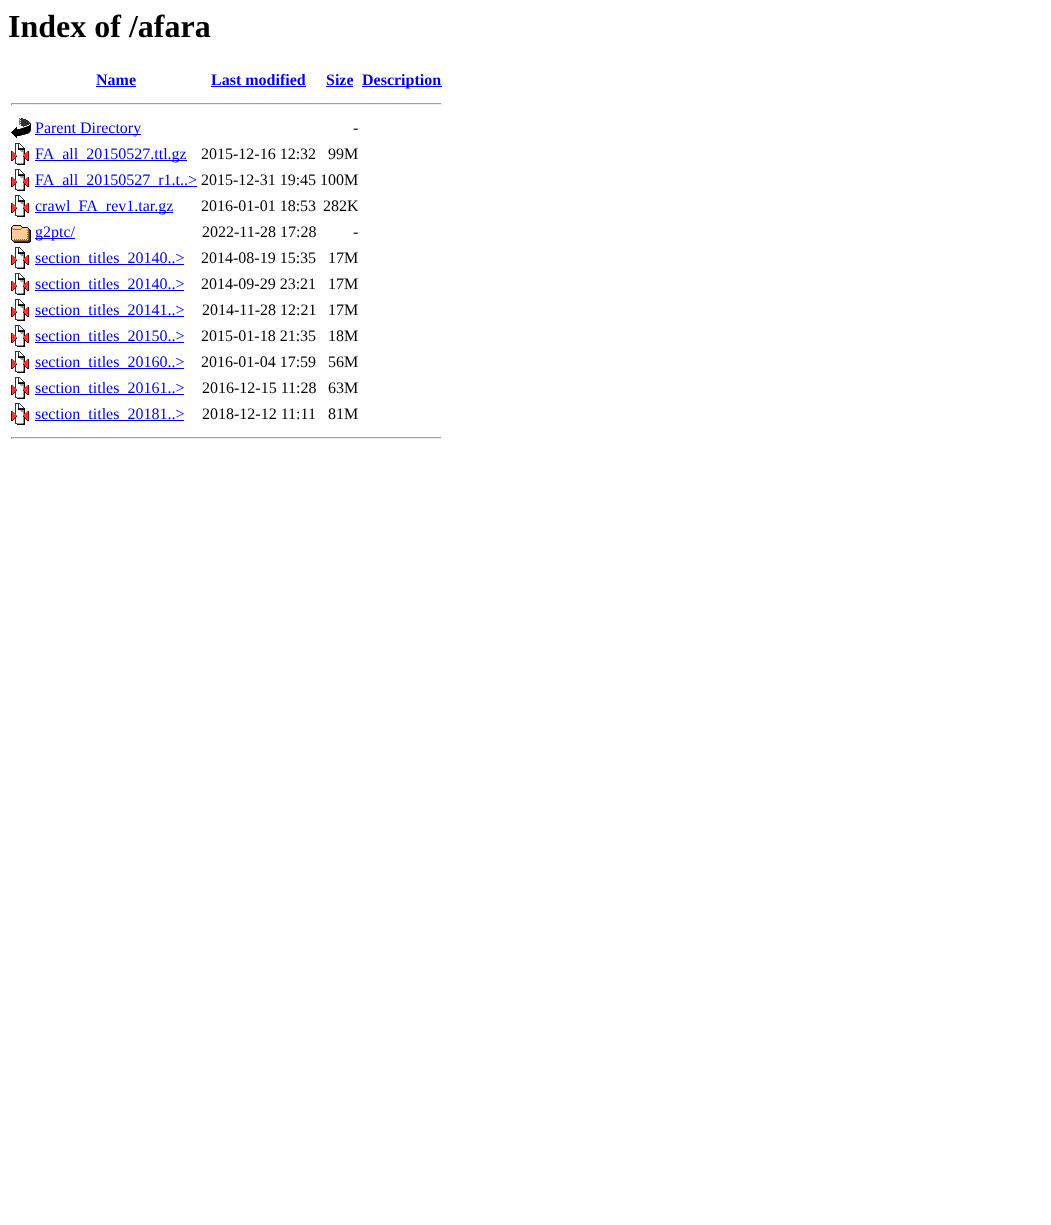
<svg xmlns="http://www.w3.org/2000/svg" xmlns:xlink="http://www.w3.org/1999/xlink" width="1051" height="1225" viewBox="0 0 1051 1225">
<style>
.cls-1{font:bold 32px Liberation Serif;fill:#000000}
.cls-2{font:bold 16px Liberation Serif;fill:#0000ee}
.cls-3{font:16px Liberation Serif;fill:#0000ee}
.cls-4{font:16px Liberation Serif;fill:#000000}
</style>
<rect width="100%" height="100%" fill="#ffffff"/>
<rect fill="#0000ee" x="96" y="86" width="40" height="1"/>
<rect fill="#0000ee" x="211" y="86" width="95" height="1"/>
<rect fill="#0000ee" x="326" y="86" width="27" height="1"/>
<rect fill="#0000ee" x="362" y="86" width="80" height="1"/>
<rect fill="#9f9f9f" x="11" y="103" width="431" height="1"/>
<rect fill="#eeeeee" x="441" y="103" width="1" height="2"/>
<rect fill="#eeeeee" x="11" y="104" width="431" height="1"/>
<rect fill="#9f9f9f" x="11" y="103" width="1" height="2"/>
<image xlink:href="image0.png" x="11" y="118" width="20" height="20"/>
<rect fill="#0000ee" x="35" y="134" width="106" height="1"/>
<image xlink:href="image1.png" x="11" y="143" width="18" height="22"/>
<rect fill="#0000ee" x="35" y="160" width="152" height="1"/>
<image xlink:href="image1.png" x="11" y="169" width="18" height="22"/>
<rect fill="#0000ee" x="35" y="186" width="162" height="1"/>
<image xlink:href="image1.png" x="11" y="195" width="18" height="22"/>
<rect fill="#0000ee" x="35" y="212" width="138" height="1"/>
<image xlink:href="image2.png" x="11" y="225" width="20" height="18"/>
<rect fill="#0000ee" x="35" y="238" width="40" height="1"/>
<image xlink:href="image1.png" x="11" y="247" width="18" height="22"/>
<rect fill="#0000ee" x="35" y="264" width="149" height="1"/>
<image xlink:href="image1.png" x="11" y="273" width="18" height="22"/>
<rect fill="#0000ee" x="35" y="290" width="149" height="1"/>
<image xlink:href="image1.png" x="11" y="299" width="18" height="22"/>
<rect fill="#0000ee" x="35" y="316" width="149" height="1"/>
<image xlink:href="image1.png" x="11" y="325" width="18" height="22"/>
<rect fill="#0000ee" x="35" y="342" width="149" height="1"/>
<image xlink:href="image1.png" x="11" y="351" width="18" height="22"/>
<rect fill="#0000ee" x="35" y="368" width="149" height="1"/>
<image xlink:href="image1.png" x="11" y="377" width="18" height="22"/>
<rect fill="#0000ee" x="35" y="394" width="149" height="1"/>
<image xlink:href="image1.png" x="11" y="403" width="18" height="22"/>
<rect fill="#0000ee" x="35" y="420" width="149" height="1"/>
<rect fill="#9f9f9f" x="11" y="437" width="431" height="1"/>
<rect fill="#eeeeee" x="441" y="437" width="1" height="2"/>
<rect fill="#eeeeee" x="11" y="438" width="431" height="1"/>
<rect fill="#9f9f9f" x="11" y="437" width="1" height="2"/>
<text class="cls-1" x="8" y="37">Index of /afara</text>
<text class="cls-2" x="96" y="85">Name</text>
<text class="cls-2" x="211" y="85">Last modified</text>
<text class="cls-2" x="326" y="85">Size</text>
<text class="cls-2" x="362" y="85">Description</text>
<text class="cls-3" x="35" y="133">Parent Directory</text>
<text class="cls-4" x="353" y="133">-</text>
<text class="cls-3" x="35" y="159">FA_all_20150527.ttl.gz</text>
<text class="cls-4" x="201" y="159">2015-12-16 12:32</text>
<text class="cls-4" x="328" y="159">99M</text>
<text class="cls-3" x="35" y="185">FA_all_20150527_r1.t..&gt;</text>
<text class="cls-4" x="201" y="185">2015-12-31 19:45 100M</text>
<text class="cls-3" x="35" y="211">crawl_FA_rev1.tar.gz</text>
<text class="cls-4" x="201" y="211">2016-01-01 18:53</text>
<text class="cls-4" x="323" y="211">282K</text>
<text class="cls-3" x="35" y="237">g2ptc/</text>
<text class="cls-4" x="202" y="237">2022-11-28 17:28</text>
<text class="cls-4" x="353" y="237">-</text>
<text class="cls-3" x="35" y="263">section_titles_20140..&gt;</text>
<text class="cls-4" x="201" y="263">2014-08-19 15:35</text>
<text class="cls-4" x="328" y="263">17M</text>
<text class="cls-3" x="35" y="289">section_titles_20140..&gt;</text>
<text class="cls-4" x="201" y="289">2014-09-29 23:21</text>
<text class="cls-4" x="328" y="289">17M</text>
<text class="cls-3" x="35" y="315">section_titles_20141..&gt;</text>
<text class="cls-4" x="202" y="315">2014-11-28 12:21</text>
<text class="cls-4" x="328" y="315">17M</text>
<text class="cls-3" x="35" y="341">section_titles_20150..&gt;</text>
<text class="cls-4" x="201" y="341">2015-01-18 21:35</text>
<text class="cls-4" x="328" y="341">18M</text>
<text class="cls-3" x="35" y="367">section_titles_20160..&gt;</text>
<text class="cls-4" x="201" y="367">2016-01-04 17:59</text>
<text class="cls-4" x="328" y="367">56M</text>
<text class="cls-3" x="35" y="393">section_titles_20161..&gt;</text>
<text class="cls-4" x="202" y="393">2016-12-15 11:28</text>
<text class="cls-4" x="328" y="393">63M</text>
<text class="cls-3" x="35" y="419">section_titles_20181..&gt;</text>
<text class="cls-4" x="202" y="419">2018-12-12 11:11</text>
<text class="cls-4" x="328" y="419">81M</text>
</svg>
